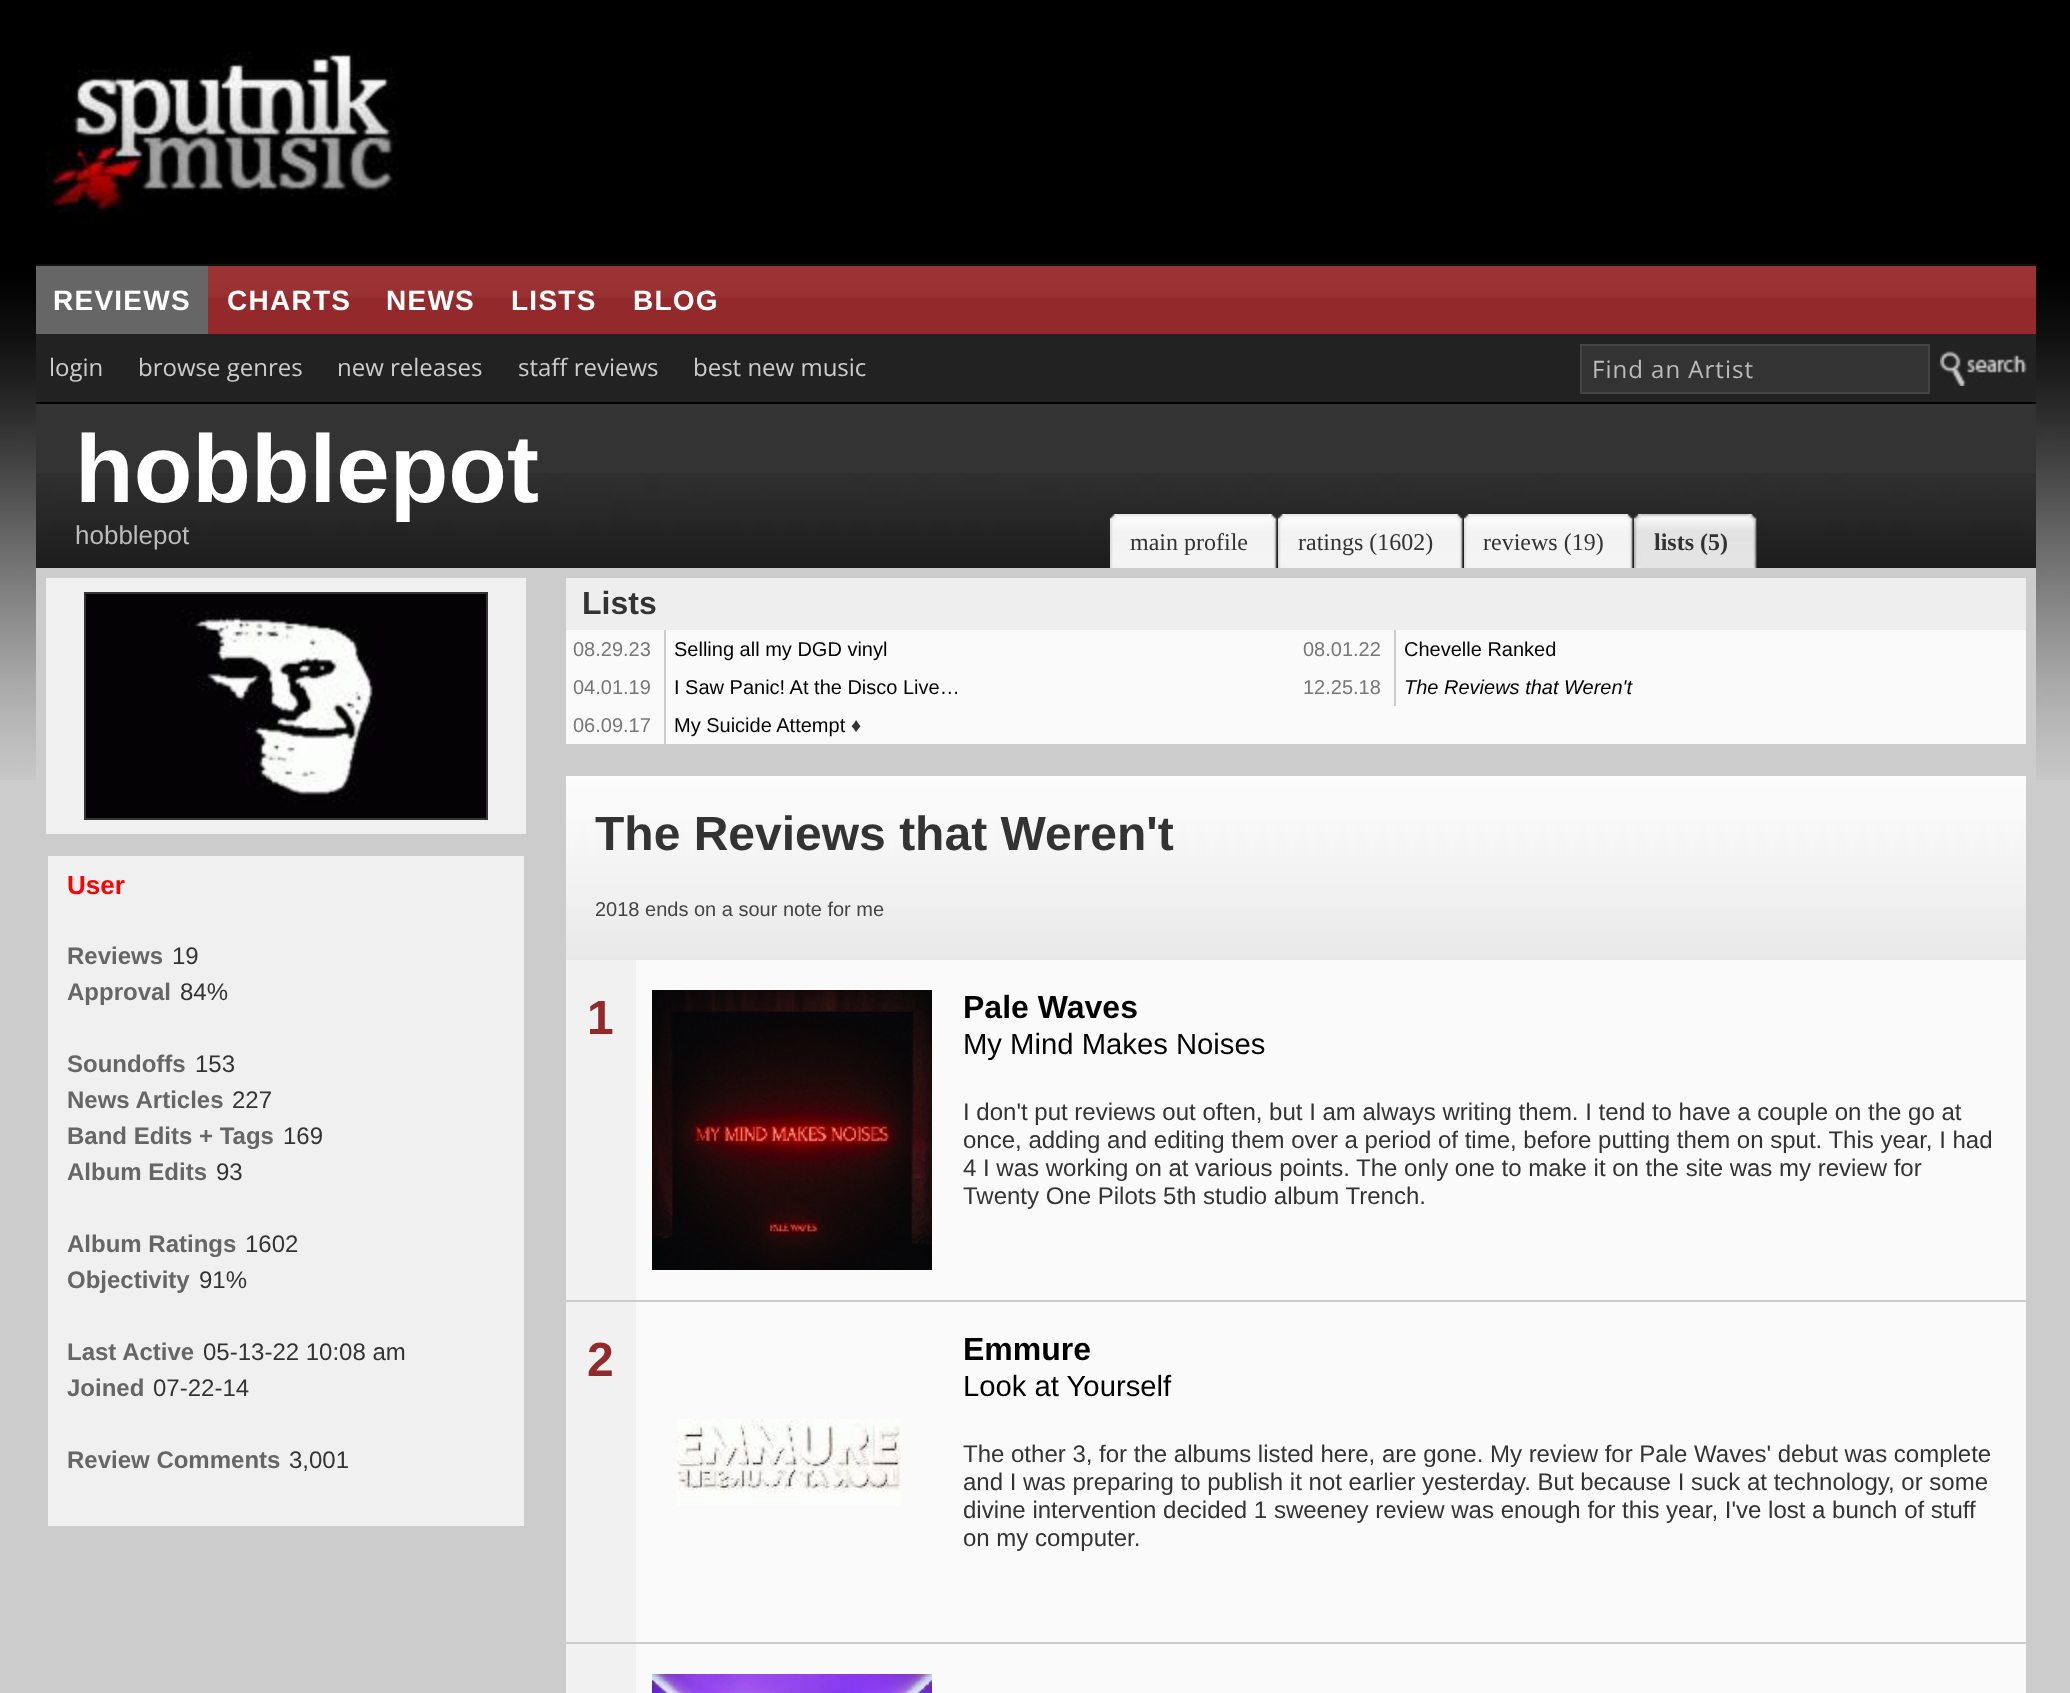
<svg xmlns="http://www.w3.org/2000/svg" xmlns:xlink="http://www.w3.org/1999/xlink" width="2070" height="1693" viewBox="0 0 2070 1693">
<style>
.cls-1{font:bold 28px Liberation Sans;letter-spacing:1.25px;fill:#ffffff}
.cls-2{font:24px Open Sans;fill:#cccccc}
.cls-3{font:24px Open Sans;letter-spacing:1px;fill:#bbbbbb}
.cls-4{font:bold 96px Liberation Sans;fill:#ffffff}
.cls-5{font:26px Liberation Sans;fill:#bbbbbb}
.cls-6{font:24px Liberation Serif;fill:#333333}
.cls-7{font:bold 24px Liberation Serif;fill:#333333}
.cls-8{font:bold 26px Liberation Sans;fill:#ff0000}
.cls-9{font:bold 24px Liberation Sans;fill:#666666}
.cls-10{font:24px Liberation Sans;fill:#333333}
.cls-11{font:bold 32px Liberation Sans;fill:#333333}
.cls-12{font:20px Liberation Sans;fill:#777777}
.cls-13{font:20px Liberation Sans;fill:#000000}
.cls-14{font:italic 20px Liberation Sans;fill:#000000}
.cls-15{font:bold 20px Liberation Sans;fill:#333333}
.cls-16{font:bold 48px Liberation Sans;fill:#333333}
.cls-17{font:20px Liberation Sans;fill:#444444}
.cls-18{font:bold 48px Liberation Sans;fill:#93292b}
.cls-19{font:bold 32px Liberation Sans;fill:#000000}
.cls-20{font:29.25px Liberation Sans;fill:#000000}
</style>
<rect width="100%" height="100%" fill="#cccccc"/>
<image xlink:href="image0.png" x="0" y="0" width="2070" height="780"/>
<image xlink:href="image1.png" x="46" y="52" width="352" height="161"/>
<image xlink:href="image2.png" x="208" y="266" width="1228" height="68"/>
<rect fill="#111111" x="36" y="264" width="2000" height="2"/>
<rect fill="#666666" x="36" y="266" width="172" height="68"/>
<image xlink:href="image3.png" x="1436" y="266" width="600" height="68"/>
<rect fill="#222222" x="36" y="334" width="2000" height="68"/>
<rect fill="#333333" stroke="#444444" stroke-width="2" x="1581" y="345" width="348" height="48"/>
<image xlink:href="image4.png" x="1940" y="351" width="87" height="35"/>
<rect fill="#000000" x="36" y="402" width="2000" height="2"/>
<rect fill="#cccccc" x="36" y="568" width="2000" height="212"/>
<rect fill="#333333" x="36" y="404" width="2000" height="69"/>
<image xlink:href="image5.png" x="36" y="473" width="2000" height="95"/>
<image xlink:href="image6.png" x="1110" y="514" width="8" height="54"/>
<image xlink:href="image7.png" x="1118" y="514" width="159" height="54"/>
<image xlink:href="image6.png" x="1278" y="514" width="8" height="54"/>
<image xlink:href="image8.png" x="1286" y="514" width="177" height="54"/>
<image xlink:href="image9.png" x="1464" y="514" width="8" height="54"/>
<image xlink:href="image10.png" x="1472" y="514" width="161" height="54"/>
<image xlink:href="image11.png" x="1634" y="514" width="8" height="54"/>
<image xlink:href="image12.png" x="1642" y="514" width="115" height="54"/>
<rect fill="#f0f0f0" x="46" y="578" width="480" height="256"/>
<rect fill="none" stroke="#333333" stroke-width="2" x="85" y="593" width="402" height="226"/>
<image xlink:href="image13.png" x="86" y="594" width="400" height="224"/>
<rect fill="#f0f0f0" x="48" y="856" width="476" height="670"/>
<rect fill="#fafafa" x="566" y="630" width="1460" height="114"/>
<rect fill="#eeeeee" x="566" y="578" width="1460" height="52"/>
<rect fill="#cccccc" x="664" y="630" width="2" height="114"/>
<rect fill="#cccccc" x="1394" y="630" width="2" height="76"/>
<image xlink:href="image14.png" x="566" y="776" width="1460" height="184"/>
<rect fill="#fafafa" x="636" y="960" width="1390" height="340"/>
<image xlink:href="image15.png" x="652" y="990" width="280" height="280"/>
<rect fill="#f1f1f1" x="566" y="960" width="70" height="340"/>
<rect fill="#fafafa" x="636" y="1302" width="1390" height="340"/>
<image xlink:href="image16.png" x="677" y="1419" width="224" height="87"/>
<rect fill="#f1f1f1" x="566" y="1302" width="70" height="340"/>
<rect fill="#f1f1f1" x="566" y="1644" width="70" height="49"/>
<rect fill="#fafafa" x="636" y="1644" width="1390" height="49"/>
<image xlink:href="image17.png" x="652" y="1674" width="280" height="19"/>
<text class="cls-1" x="53" y="310">REVIEWS</text>
<text class="cls-1" x="227" y="310">CHARTS</text>
<text class="cls-1" x="386" y="310">NEWS</text>
<text class="cls-1" x="511" y="310">LISTS</text>
<text class="cls-1" x="633" y="310">BLOG</text>
<text class="cls-2" x="49" y="376">login</text>
<text class="cls-2" x="138" y="376">browse genres</text>
<text class="cls-2" x="337" y="376">new releases</text>
<text class="cls-2" x="518" y="376">staff reviews</text>
<text class="cls-2" x="693" y="376">best new music</text>
<text class="cls-3" x="1592" y="378">Find an Artist</text>
<text class="cls-4" x="75" y="502">hobblepot</text>
<text class="cls-5" x="75" y="544">hobblepot</text>
<text class="cls-6" x="1130" y="550">main profile</text>
<text class="cls-6" x="1298" y="550">ratings (1602)</text>
<text class="cls-6" x="1483" y="550">reviews (19)</text>
<text class="cls-7" x="1654" y="550">lists (5)</text>
<text class="cls-8" x="67" y="894">User</text>
<text class="cls-9" x="67" y="964">Reviews</text>
<text class="cls-10" x="172" y="964">19</text>
<text class="cls-9" x="67" y="1000">Approval</text>
<text class="cls-10" x="180" y="1000">84%</text>
<text class="cls-9" x="67" y="1072">Soundoffs</text>
<text class="cls-10" x="195" y="1072">153</text>
<text class="cls-9" x="67" y="1108">News Articles</text>
<text class="cls-10" x="232" y="1108">227</text>
<text class="cls-9" x="67" y="1144">Band Edits + Tags</text>
<text class="cls-10" x="283" y="1144">169</text>
<text class="cls-9" x="67" y="1180">Album Edits</text>
<text class="cls-10" x="216" y="1180">93</text>
<text class="cls-9" x="67" y="1252">Album Ratings</text>
<text class="cls-10" x="245" y="1252">1602</text>
<text class="cls-9" x="67" y="1288">Objectivity</text>
<text class="cls-10" x="199" y="1288">91%</text>
<text class="cls-9" x="67" y="1360">Last Active</text>
<text class="cls-10" x="203" y="1360">05-13-22 10:08 am</text>
<text class="cls-9" x="67" y="1396">Joined</text>
<text class="cls-10" x="153" y="1396">07-22-14</text>
<text class="cls-9" x="67" y="1468">Review Comments</text>
<text class="cls-10" x="289" y="1468">3,001</text>
<text class="cls-11" x="582" y="614">Lists</text>
<text class="cls-12" x="573" y="656">08.29.23</text>
<text class="cls-13" x="674" y="656">Selling all my DGD vinyl</text>
<text class="cls-12" x="1303" y="656">08.01.22</text>
<text class="cls-13" x="1404" y="656">Chevelle Ranked</text>
<text class="cls-12" x="573" y="694">04.01.19</text>
<text class="cls-13" x="674" y="694">I Saw Panic! At the Disco Live…</text>
<text class="cls-12" x="1303" y="694">12.25.18</text>
<text class="cls-14" x="1404" y="694">The Reviews that Weren't</text>
<text class="cls-12" x="573" y="732">06.09.17</text>
<text class="cls-13" x="674" y="732">My Suicide Attempt</text>
<text class="cls-15" x="851" y="732">♦</text>
<text class="cls-16" x="595" y="850">The Reviews that Weren't</text>
<text class="cls-17" x="595" y="916">2018 ends on a sour note for me</text>
<text class="cls-18" x="587" y="1034">1</text>
<text class="cls-19" x="963" y="1018">Pale Waves</text>
<text class="cls-20" x="963" y="1054">My Mind Makes Noises</text>
<text class="cls-10"><tspan x="963" y="1120">I don't put reviews out often, but I am always writing them. I tend to have a couple on the go at</tspan><tspan x="963" y="1148">once, adding and editing them over a period of time, before putting them on sput. This year, I had</tspan><tspan x="963" y="1176">4 I was working on at various points. The only one to make it on the site was my review for</tspan><tspan x="963" y="1204">Twenty One Pilots 5th studio album Trench.</tspan></text>
<text class="cls-18" x="587" y="1376">2</text>
<text class="cls-19" x="963" y="1360">Emmure</text>
<text class="cls-20" x="963" y="1396">Look at Yourself</text>
<text class="cls-10"><tspan x="963" y="1462">The other 3, for the albums listed here, are gone. My review for Pale Waves' debut was complete</tspan><tspan x="963" y="1490">and I was preparing to publish it not earlier yesterday. But because I suck at technology, or some</tspan><tspan x="963" y="1518">divine intervention decided 1 sweeney review was enough for this year, I've lost a bunch of stuff</tspan><tspan x="963" y="1546">on my computer.</tspan></text>
</svg>
